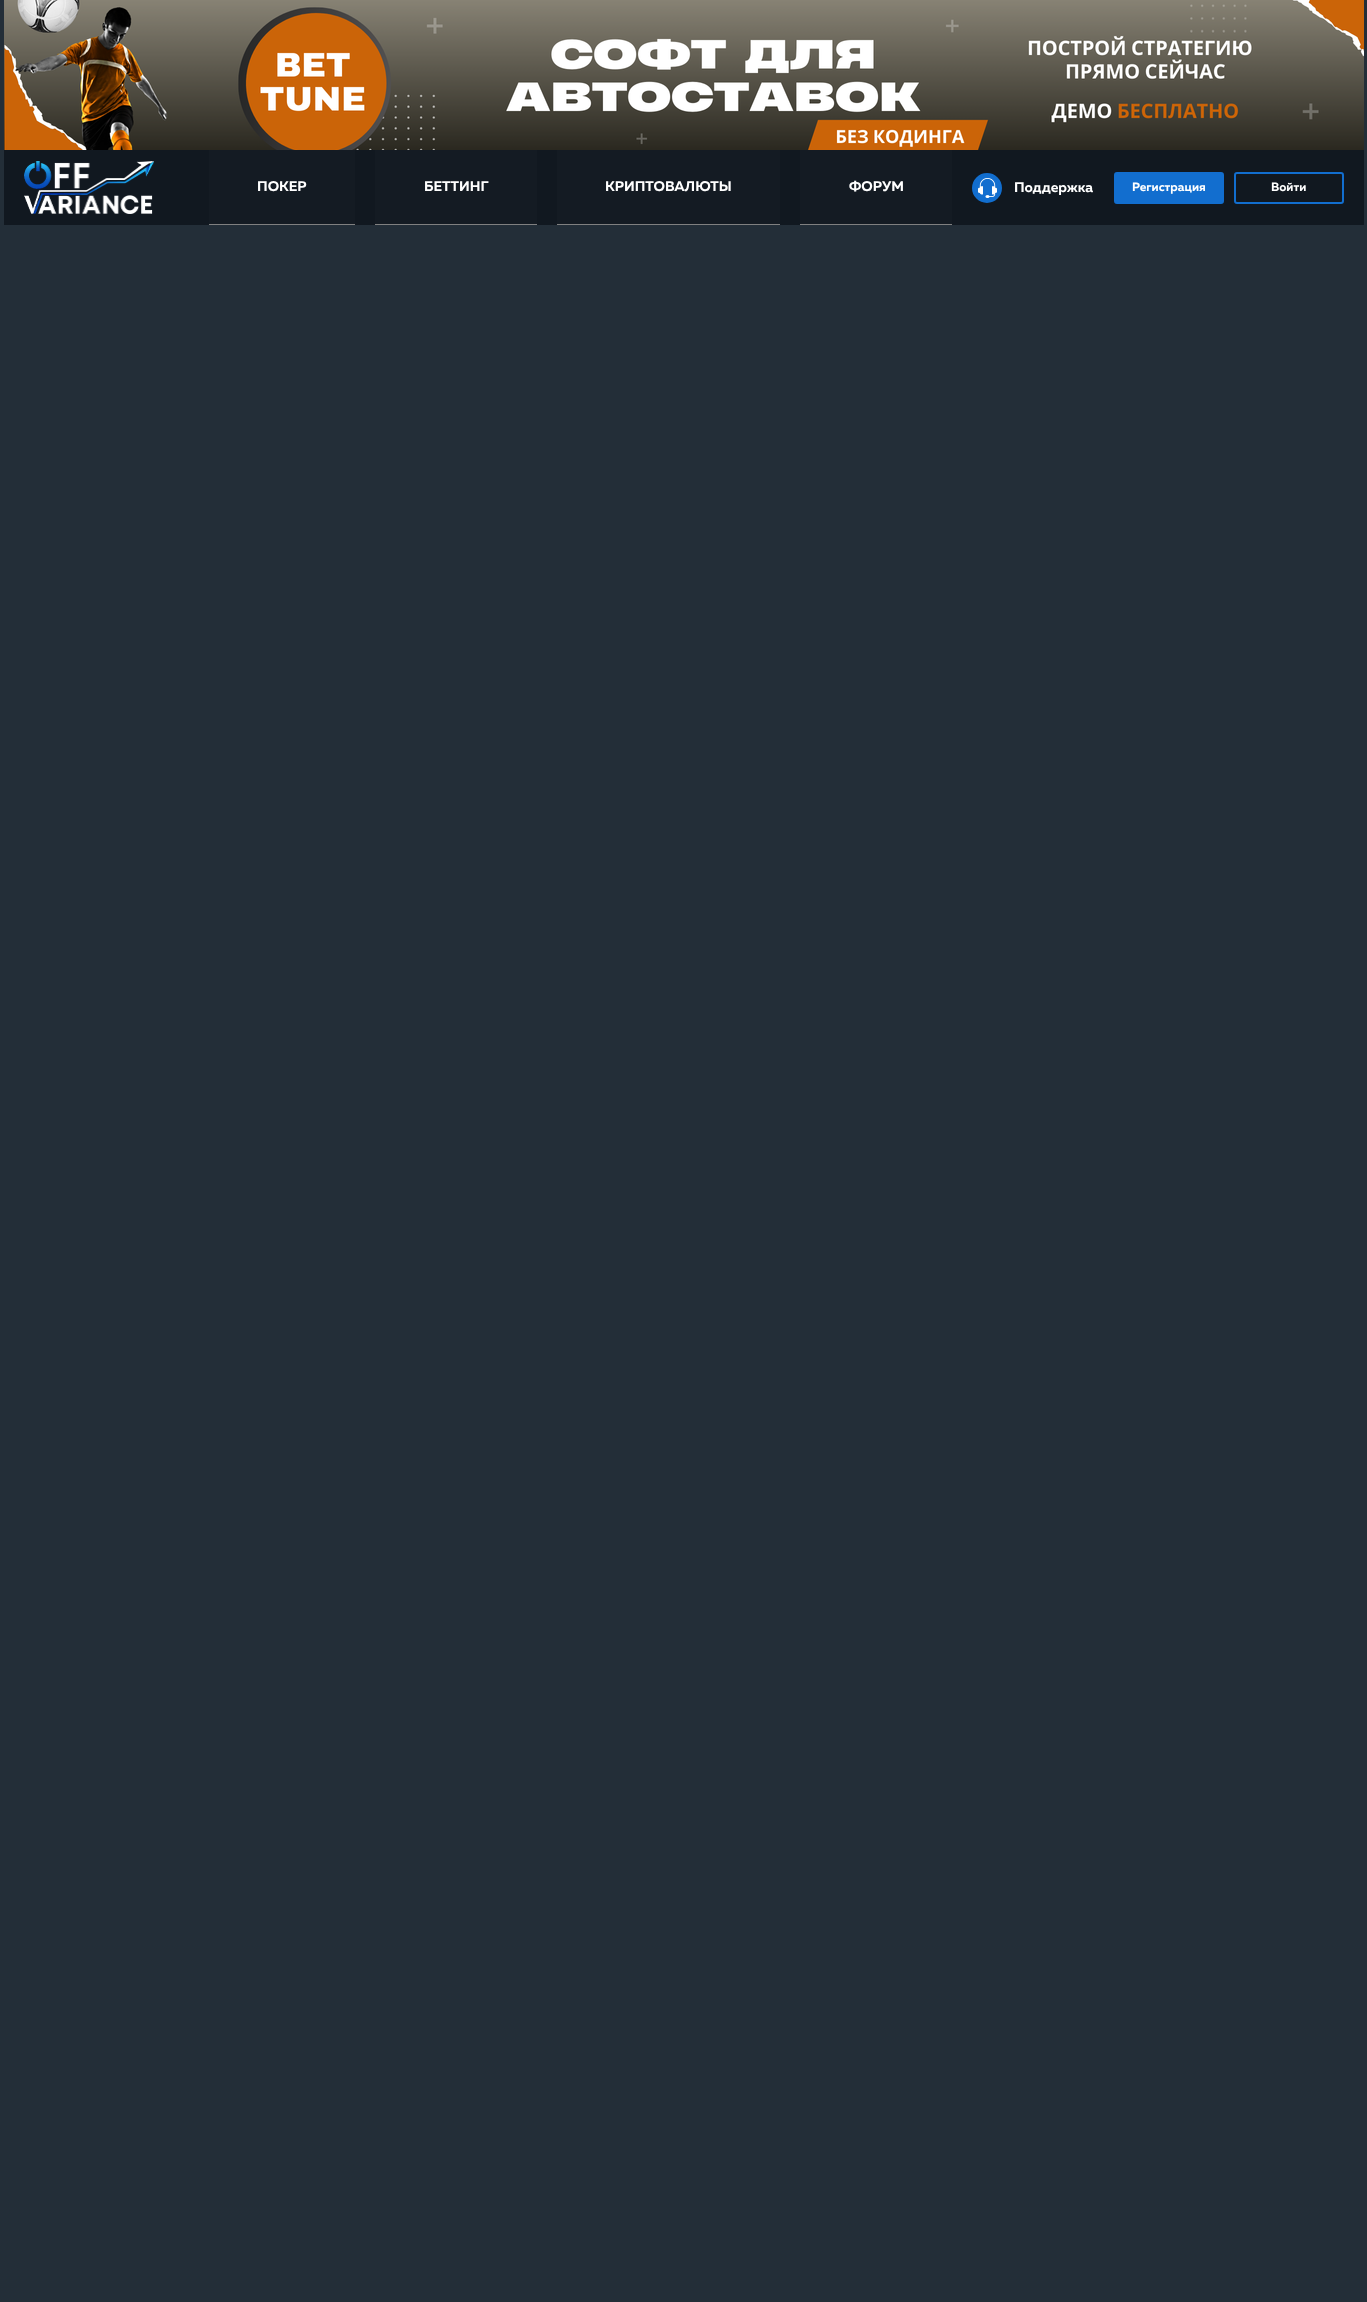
<svg xmlns="http://www.w3.org/2000/svg" xmlns:xlink="http://www.w3.org/1999/xlink" width="1367" height="2302" viewBox="0 0 1367 2302">
<style>
.cls-1{font:bold 14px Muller;fill:#ffffff}
.cls-2{font:bold 12px Muller;fill:#ffffff}
</style>
<rect width="100%" height="100%" fill="#232e38"/>
<image xlink:href="image0.png" x="4" y="0" width="1360" height="150"/>
<rect fill="#111820" x="4" y="150" width="1360" height="75"/>
<image xlink:href="image1.png" x="24" y="161" width="130" height="53"/>
<rect fill="#141b23" x="209" y="150" width="146" height="74"/>
<rect fill="#808080" x="209" y="224" width="146" height="1"/>
<rect fill="#141b23" x="375" y="150" width="162" height="74"/>
<rect fill="#808080" x="375" y="224" width="162" height="1"/>
<rect fill="#141b23" x="557" y="150" width="223" height="74"/>
<rect fill="#808080" x="557" y="224" width="223" height="1"/>
<rect fill="#141b23" x="800" y="150" width="152" height="74"/>
<rect fill="#808080" x="800" y="224" width="152" height="1"/>
<circle fill="#126ecf" stroke="#126ecf" stroke-width="2" cx="987" cy="188" r="14"/>
<image xlink:href="image2.png" x="978" y="178" width="19" height="20"/>
<rect fill="#126ecf" stroke="#126ecf" stroke-width="2" x="1115" y="173" width="108" height="30" rx="2"/>
<rect fill="none" stroke="#126ecf" stroke-width="2" x="1235" y="173" width="108" height="30" rx="2"/>
<text class="cls-1" x="257" y="191">ПОКЕР</text>
<text class="cls-1" x="424" y="191">БЕТТИНГ</text>
<text class="cls-1" x="605" y="191">КРИПТОВАЛЮТЫ</text>
<text class="cls-1" x="849" y="191">ФОРУМ</text>
<text class="cls-1" x="1014" y="192">Поддержка</text>
<text class="cls-2" x="1132" y="191">Регистрация</text>
<text class="cls-2" x="1271" y="191">Войти</text>
</svg>
